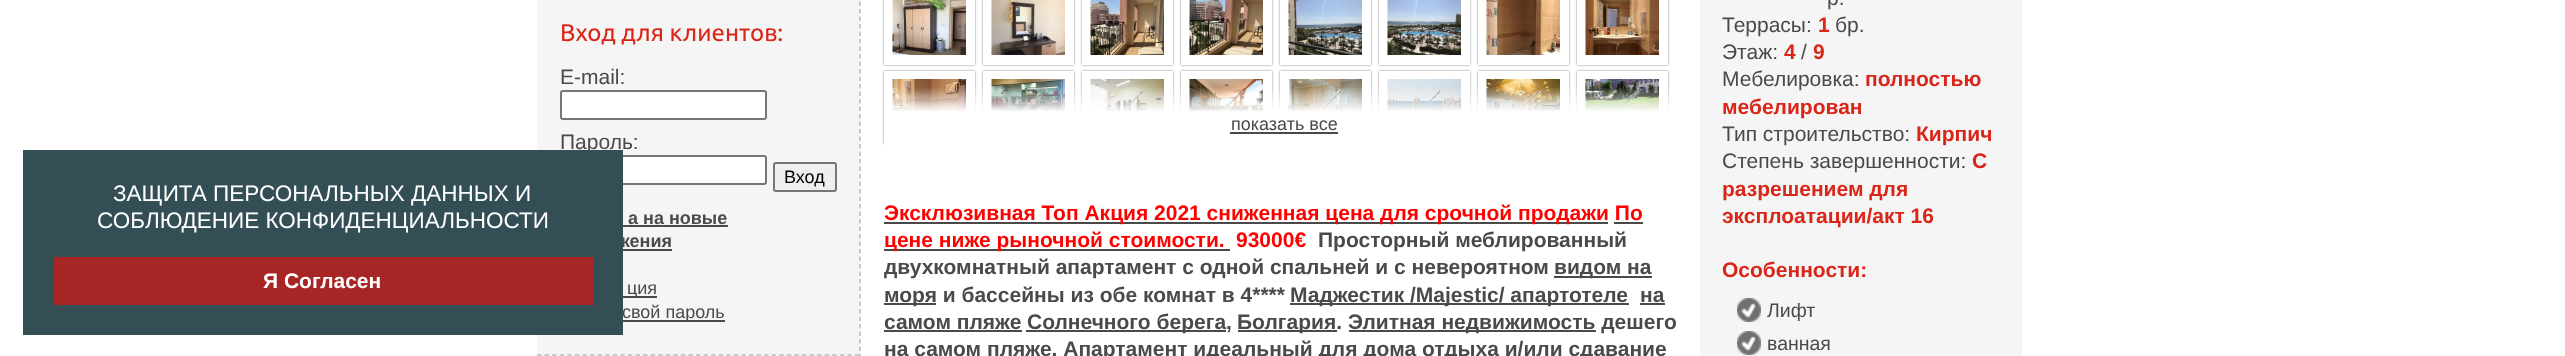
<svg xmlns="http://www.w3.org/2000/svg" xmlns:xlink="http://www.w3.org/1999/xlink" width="2565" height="356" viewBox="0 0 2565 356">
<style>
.cls-1{font:24px Ubuntu;fill:#da2619}
.cls-2{font:21px Liberation Sans;fill:#4a4a4a}
.cls-3{font:18px Liberation Sans;fill:#000000}
.cls-4{font:bold 18px Liberation Sans;fill:#4a4a4a}
.cls-5{font:18px Liberation Sans;fill:#4a4a4a}
.cls-6{font:bold 21px Liberation Sans;fill:#ffffff}
.cls-7{font:22.5px Liberation Sans;fill:#ffffff}
.cls-8{font:bold 21px Liberation Sans;fill:#ff0000}
.cls-9{font:bold 21px Liberation Sans;fill:#4a4a4a}
.cls-10{font:bold 21px Liberation Sans;fill:#da2619}
.cls-11{font:19.5px Liberation Sans;fill:#4a4a4a}
</style>
<defs>
<clipPath id="clip1"><path d="M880 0H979V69H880ZM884-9H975V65H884Z" clip-rule="evenodd"/></clipPath>
<clipPath id="clip2"><path d="M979 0H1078V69H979ZM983-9H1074V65H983Z" clip-rule="evenodd"/></clipPath>
<clipPath id="clip3"><path d="M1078 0H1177V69H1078ZM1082-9H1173V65H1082Z" clip-rule="evenodd"/></clipPath>
<clipPath id="clip4"><path d="M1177 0H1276V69H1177ZM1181-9H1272V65H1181Z" clip-rule="evenodd"/></clipPath>
<clipPath id="clip5"><path d="M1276 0H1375V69H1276ZM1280-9H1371V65H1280Z" clip-rule="evenodd"/></clipPath>
<clipPath id="clip6"><path d="M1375 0H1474V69H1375ZM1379-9H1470V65H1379Z" clip-rule="evenodd"/></clipPath>
<clipPath id="clip7"><path d="M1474 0H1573V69H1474ZM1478-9H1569V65H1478Z" clip-rule="evenodd"/></clipPath>
<clipPath id="clip8"><path d="M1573 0H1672V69H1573ZM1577-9H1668V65H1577Z" clip-rule="evenodd"/></clipPath>
<clipPath id="clip9"><path d="M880 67H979V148H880ZM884 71H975V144H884Z" clip-rule="evenodd"/></clipPath>
<clipPath id="clip10"><path d="M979 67H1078V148H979ZM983 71H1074V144H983Z" clip-rule="evenodd"/></clipPath>
<clipPath id="clip11"><path d="M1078 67H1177V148H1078ZM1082 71H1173V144H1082Z" clip-rule="evenodd"/></clipPath>
<clipPath id="clip12"><path d="M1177 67H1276V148H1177ZM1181 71H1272V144H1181Z" clip-rule="evenodd"/></clipPath>
<clipPath id="clip13"><path d="M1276 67H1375V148H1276ZM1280 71H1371V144H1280Z" clip-rule="evenodd"/></clipPath>
<clipPath id="clip14"><path d="M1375 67H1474V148H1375ZM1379 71H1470V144H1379Z" clip-rule="evenodd"/></clipPath>
<clipPath id="clip15"><path d="M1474 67H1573V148H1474ZM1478 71H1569V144H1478Z" clip-rule="evenodd"/></clipPath>
<clipPath id="clip16"><path d="M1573 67H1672V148H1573ZM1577 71H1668V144H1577Z" clip-rule="evenodd"/></clipPath>
<linearGradient id="g1" gradientUnits="userSpaceOnUse" x1="1284" y1="87" x2="1284" y2="162"><stop offset="0" stop-color="#ffffff" stop-opacity="0"/><stop offset="0.33" stop-color="#ffffff"/><stop offset="1" stop-color="#ffffff"/></linearGradient>
</defs>
<rect width="100%" height="100%" fill="#ffffff"/>
<rect fill="#f5f5f5" x="537" y="0" width="323" height="356"/>
<rect fill="#ffffff" stroke="#767676" stroke-width="2" x="561" y="91" width="205" height="28" rx="2"/>
<rect fill="#ffffff" stroke="#767676" stroke-width="2" x="561" y="156" width="205" height="28" rx="2"/>
<rect fill="#efefef" stroke="#767676" stroke-width="2" x="774" y="163" width="62" height="28" rx="2"/>
<rect fill="#4a4a4a" x="623" y="225" width="105" height="2"/>
<rect fill="#4a4a4a" x="623" y="249" width="49" height="2"/>
<rect fill="#4a4a4a" x="623" y="296" width="34" height="2"/>
<rect fill="#4a4a4a" x="623" y="320" width="102" height="2"/>
<path fill="none" stroke="#bbbbbb" stroke-width="1.5" stroke-dasharray="4.5 3.07" d="M537 355H859.5"/>
<path fill="none" stroke="#bbbbbb" stroke-width="1.5" stroke-dasharray="4.5 3" d="M860-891V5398.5"/>
<g clip-path="url(#clip1)">
<rect fill="#000000" fill-opacity="0.5" filter="blur(1px)" x="884" y="-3" width="91" height="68"/>
</g>
<image xlink:href="image0.png" x="892" y="0" width="74" height="55"/>
<g clip-path="url(#clip2)">
<rect fill="#000000" fill-opacity="0.5" filter="blur(1px)" x="983" y="-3" width="91" height="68"/>
</g>
<image xlink:href="image1.png" x="991" y="0" width="74" height="55"/>
<g clip-path="url(#clip3)">
<rect fill="#000000" fill-opacity="0.5" filter="blur(1px)" x="1082" y="-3" width="91" height="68"/>
</g>
<image xlink:href="image2.png" x="1090" y="0" width="74" height="55"/>
<g clip-path="url(#clip4)">
<rect fill="#000000" fill-opacity="0.5" filter="blur(1px)" x="1181" y="-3" width="91" height="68"/>
</g>
<image xlink:href="image3.png" x="1189" y="0" width="74" height="55"/>
<g clip-path="url(#clip5)">
<rect fill="#000000" fill-opacity="0.5" filter="blur(1px)" x="1280" y="-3" width="91" height="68"/>
</g>
<image xlink:href="image4.png" x="1288" y="0" width="74" height="55"/>
<g clip-path="url(#clip6)">
<rect fill="#000000" fill-opacity="0.5" filter="blur(1px)" x="1379" y="-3" width="91" height="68"/>
</g>
<image xlink:href="image5.png" x="1387" y="0" width="74" height="55"/>
<g clip-path="url(#clip7)">
<rect fill="#000000" fill-opacity="0.5" filter="blur(1px)" x="1478" y="-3" width="91" height="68"/>
</g>
<image xlink:href="image6.png" x="1486" y="0" width="74" height="55"/>
<g clip-path="url(#clip8)">
<rect fill="#000000" fill-opacity="0.5" filter="blur(1px)" x="1577" y="-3" width="91" height="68"/>
</g>
<image xlink:href="image7.png" x="1585" y="0" width="74" height="55"/>
<g clip-path="url(#clip9)">
<rect fill="#000000" fill-opacity="0.5" filter="blur(1px)" x="884" y="71" width="91" height="73"/>
</g>
<image xlink:href="image8.png" x="892" y="79" width="74" height="33"/>
<g clip-path="url(#clip10)">
<rect fill="#000000" fill-opacity="0.5" filter="blur(1px)" x="983" y="71" width="91" height="73"/>
</g>
<image xlink:href="image9.png" x="991" y="79" width="74" height="33"/>
<g clip-path="url(#clip11)">
<rect fill="#000000" fill-opacity="0.5" filter="blur(1px)" x="1082" y="71" width="91" height="73"/>
</g>
<image xlink:href="image10.png" x="1090" y="79" width="74" height="33"/>
<g clip-path="url(#clip12)">
<rect fill="#000000" fill-opacity="0.5" filter="blur(1px)" x="1181" y="71" width="91" height="73"/>
</g>
<image xlink:href="image11.png" x="1189" y="79" width="74" height="33"/>
<g clip-path="url(#clip13)">
<rect fill="#000000" fill-opacity="0.5" filter="blur(1px)" x="1280" y="71" width="91" height="73"/>
</g>
<image xlink:href="image12.png" x="1288" y="79" width="74" height="33"/>
<g clip-path="url(#clip14)">
<rect fill="#000000" fill-opacity="0.5" filter="blur(1px)" x="1379" y="71" width="91" height="73"/>
</g>
<image xlink:href="image13.png" x="1387" y="79" width="74" height="33"/>
<g clip-path="url(#clip15)">
<rect fill="#000000" fill-opacity="0.5" filter="blur(1px)" x="1478" y="71" width="91" height="73"/>
</g>
<image xlink:href="image14.png" x="1486" y="79" width="74" height="33"/>
<g clip-path="url(#clip16)">
<rect fill="#000000" fill-opacity="0.5" filter="blur(1px)" x="1577" y="71" width="91" height="73"/>
</g>
<image xlink:href="image15.png" x="1585" y="79" width="74" height="33"/>
<rect fill="url(#g1)" x="884" y="88" width="786" height="58"/>
<rect fill="#4a4a4a" x="1230" y="132" width="108" height="2"/>
<rect fill="#4a4a4a" x="884" y="222" width="724" height="2"/>
<rect fill="#4a4a4a" x="884" y="249" width="346" height="2"/>
<rect fill="#4a4a4a" x="1554" y="276" width="98" height="2"/>
<rect fill="#4a4a4a" x="884" y="303" width="52" height="2"/>
<rect fill="#4a4a4a" x="1290" y="303" width="339" height="2"/>
<rect fill="#4a4a4a" x="1640" y="303" width="25" height="2"/>
<rect fill="#4a4a4a" x="884" y="330" width="138" height="2"/>
<rect fill="#4a4a4a" x="1026" y="330" width="200" height="2"/>
<rect fill="#4a4a4a" x="1238" y="330" width="99" height="2"/>
<rect fill="#4a4a4a" x="1349" y="330" width="247" height="2"/>
<rect fill="#f5f5f5" x="1700" y="0" width="322" height="356"/>
<image xlink:href="image16.png" x="1737" y="298" width="24" height="24"/>
<image xlink:href="image16.png" x="1737" y="331" width="24" height="24"/>
<text class="cls-1" x="560" y="41">Вход для клиентов:</text>
<text class="cls-2" x="560" y="84">E-mail:</text>
<text class="cls-2" x="560" y="149">Пароль:</text>
<text class="cls-3" x="784" y="183">Вход</text>
<text class="cls-4" x="628" y="224">а на новые</text>
<text class="cls-4" x="617" y="247">жения</text>
<text class="cls-5" x="627" y="294">ция</text>
<text class="cls-5" x="622" y="318">свой пароль</text>
<rect fill="#344e56" x="23" y="150" width="600" height="185"/>
<rect fill="#a82525" x="53" y="257" width="540" height="48"/>
<text class="cls-6" x="263" y="288">Я Согласен</text>
<text class="cls-7" x="97" y="228">СОБЛЮДЕНИЕ КОНФИДЕНЦИАЛЬНОСТИ</text>
<text class="cls-7" x="113" y="201">ЗАЩИТА ПЕРСОНАЛЬНЫХ ДАННЫХ И</text>
<text class="cls-5" x="1231" y="130">показать все</text>
<text class="cls-8" x="884" y="220">Эксклюзивная Топ Акция 2021 сниженная цена для срочной продажи По</text>
<rect fill="#4a4a4a" x="1614" y="222" width="29" height="2"/>
<text class="cls-8" x="884" y="247">цене ниже рыночной стоимости.</text>
<text class="cls-8" x="1236" y="247">93000€</text>
<text class="cls-9" x="1318" y="247">Просторный меблированный</text>
<text class="cls-9" x="884" y="274">двухкомнатный апартамент с одной спальней и с невероятном</text>
<text class="cls-9" x="1554" y="274">видом на</text>
<text class="cls-9" x="884" y="302">моря и бассейны из обе комнат в 4****</text>
<text class="cls-9" x="1290" y="302">Маджестик /Majestic/ апартотеле</text>
<text class="cls-9" x="1640" y="302">на</text>
<text class="cls-9" x="884" y="329">самом пляже</text>
<text class="cls-9" x="1027" y="329">Солнечного берега,</text>
<text class="cls-9" x="1237" y="329">Болгария.</text>
<text class="cls-9" x="1348" y="329">Элитная недвижимость дешего</text>
<text class="cls-9" x="884" y="356">на самом пляже. Апартамент идеальный для дома отдыха и/или сдавание</text>
<text class="cls-2" x="1827" y="5">р.</text>
<text class="cls-2" x="1722" y="32">Террасы:</text>
<text class="cls-10" x="1818" y="32">1</text>
<text class="cls-2" x="1835" y="32">бр.</text>
<text class="cls-2" x="1722" y="59">Этаж:</text>
<text class="cls-10" x="1784" y="59">4</text>
<text class="cls-2" x="1801" y="59">/</text>
<text class="cls-10" x="1813" y="59">9</text>
<text class="cls-2" x="1722" y="86">Мебелировка:</text>
<text class="cls-10" x="1865" y="86">полностью</text>
<text class="cls-10" x="1722" y="114">мебелирован</text>
<text class="cls-2" x="1722" y="141">Тип строительство:</text>
<text class="cls-10" x="1916" y="141">Кирпич</text>
<text class="cls-2" x="1722" y="168">Степень завершенности:</text>
<text class="cls-10" x="1972" y="168">С</text>
<text class="cls-10"><tspan x="1722" y="196">разрешением для</tspan><tspan x="1722" y="223">эксплоатации/акт 16</tspan></text>
<text class="cls-10" x="1722" y="277">Особенности:</text>
<text class="cls-11"><tspan x="1767" y="317">Лифт</tspan><tspan x="1767" y="350">ванная</tspan></text>
</svg>
